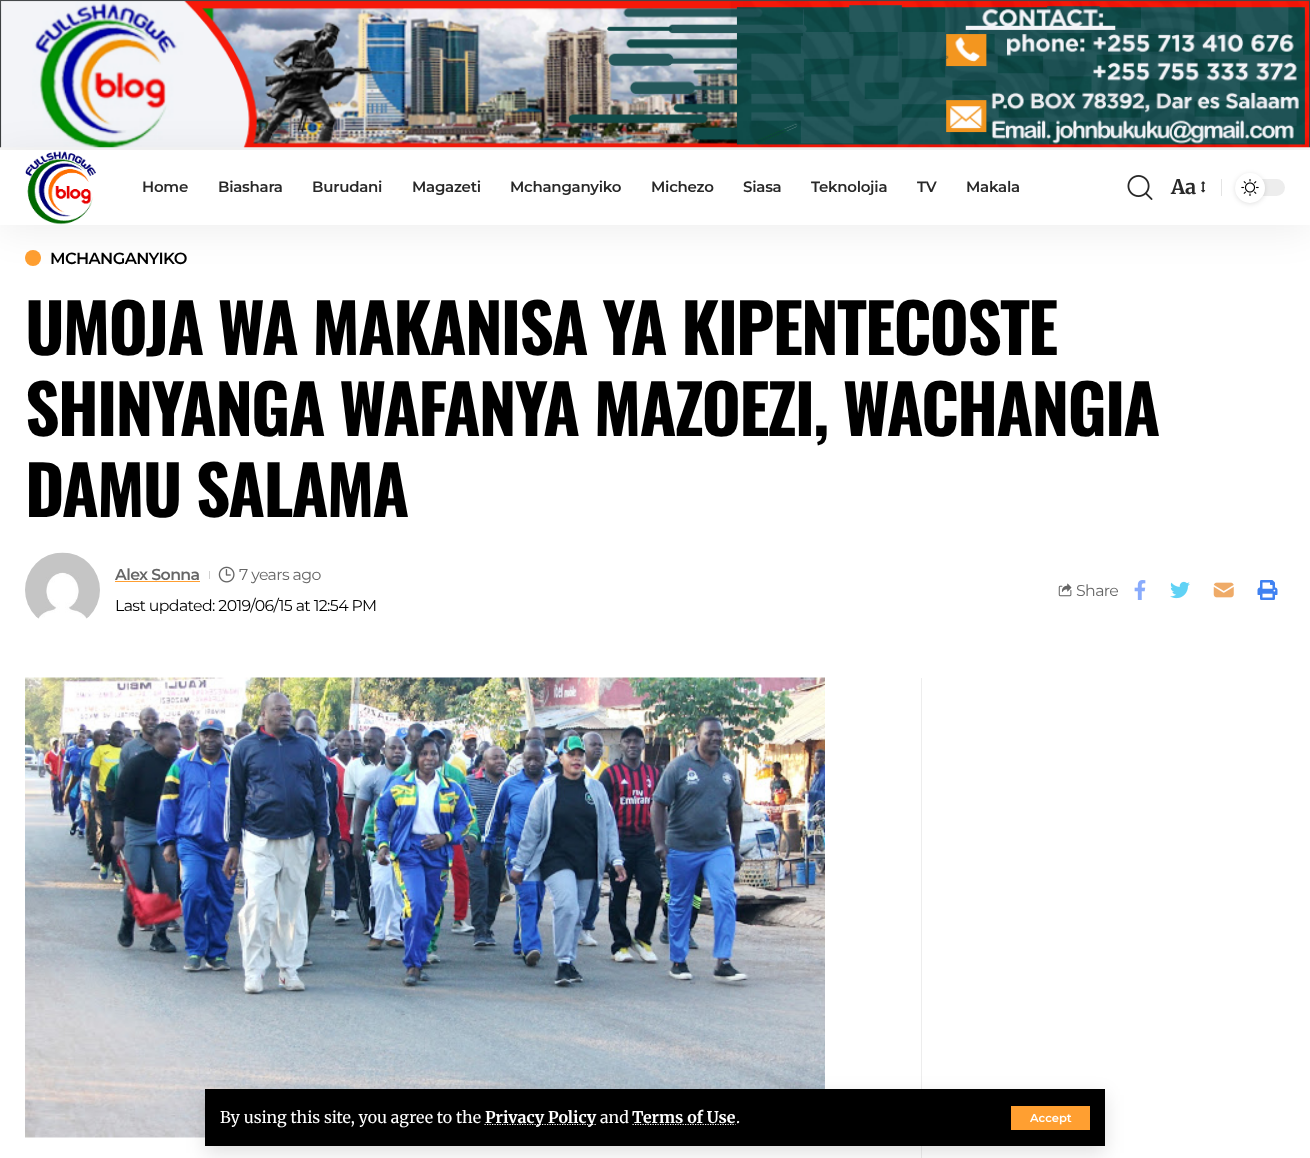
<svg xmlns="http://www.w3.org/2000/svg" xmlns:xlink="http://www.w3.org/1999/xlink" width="1310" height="1158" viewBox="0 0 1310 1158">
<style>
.cls-1{font:600 15px Montserrat;letter-spacing:-0.25px;fill:#282828}
.cls-2{font:bold 20px Merriweather;fill:#282828}
.cls-3{font:16px Merriweather;fill:#ffffff}
.cls-4{font:bold 16px Merriweather;fill:#ffffff}
.cls-5{font:600 11.5px Montserrat;fill:#ffffff}
.cls-6{font:600 16.25px Montserrat;letter-spacing:-0.6px;fill:#000000}
.cls-7{font:bold 67.5px Oswald;letter-spacing:-1.9px;fill:#000000}
.cls-8{font:600 15.75px Montserrat;letter-spacing:-0.6px;fill:#666666}
.cls-9{font:15.75px Montserrat;letter-spacing:-0.6px;fill:#666666}
.cls-10{font:15.75px Montserrat;letter-spacing:-0.6px;fill:#000000}
</style>
<defs>
<clipPath id="clip1"><path d="M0 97H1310V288H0ZM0 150H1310V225H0Z" clip-rule="evenodd"/></clipPath>
</defs>
<rect width="100%" height="100%" fill="#ffffff"/>
<rect fill="#f7f7f7" x="0" y="147" width="1310" height="3"/>
<image xlink:href="image0.png" x="0" y="0" width="1310" height="148"/>
<circle fill="#ff9f31" cx="33" cy="258" r="8"/>
<g clip-path="url(#clip1)">
<rect fill="#000000" fill-opacity="0.07" filter="blur(19px)" x="0" y="155" width="1310" height="75"/>
</g>
<image xlink:href="image1.png" x="25" y="151" width="71" height="74"/>
<image xlink:href="image2.png" x="1127" y="175" width="26" height="25"/>
<image xlink:href="image3.png" x="1201" y="181" width="5" height="12"/>
<rect fill="#e4e4e4" x="1221" y="179" width="1" height="17"/>
<rect fill="#ededed" x="1235" y="179" width="50" height="17" rx="8.5"/>
<rect fill="#000000" fill-opacity="0.12" filter="blur(2.5px)" x="1235" y="174" width="30" height="30" rx="15"/>
<circle fill="#ffffff" cx="1250" cy="188" r="15"/>
<image xlink:href="image4.png" x="1241" y="179" width="18" height="17"/>
<image xlink:href="image12.png" x="25" y="677" width="800" height="461"/>
<rect fill="#ededed" x="921" y="678" width="1" height="480"/>
<rect fill="#000000" fill-opacity="0.12" filter="blur(9.5px)" x="205" y="1095" width="900" height="58"/>
<rect fill="#000000" x="205" y="1089" width="900" height="57"/>
<path fill="none" stroke="#ffffff" stroke-width="1.2" stroke-dasharray="1.25 1.25" d="M484.5 1124.5H596"/>
<path fill="none" stroke="#ffffff" stroke-width="1.2" stroke-dasharray="1.25 1.25" d="M632.5 1124.5H735.5"/>
<rect fill="#ff9f31" x="1011" y="1106" width="79" height="24"/>
<image xlink:href="image5.png" x="25" y="552" width="75" height="67"/>
<rect fill="#ff9f31" x="115" y="581" width="85" height="1"/>
<rect fill="#d1d1d1" x="209" y="571" width="1" height="8"/>
<image xlink:href="image6.png" x="218" y="566" width="17" height="17"/>
<image xlink:href="image7.png" x="1058" y="583" width="14" height="14"/>
<image xlink:href="image8.png" x="1134" y="580" width="12" height="20"/>
<image xlink:href="image9.png" x="1170" y="581" width="20" height="18"/>
<image xlink:href="image10.png" x="1213" y="582" width="21" height="16"/>
<image xlink:href="image11.png" x="1257" y="580" width="21" height="20"/>
<text class="cls-1" x="142" y="192">Home</text>
<text class="cls-1" x="218" y="192">Biashara</text>
<text class="cls-1" x="312" y="192">Burudani</text>
<text class="cls-1" x="412" y="192">Magazeti</text>
<text class="cls-1" x="510" y="192">Mchanganyiko</text>
<text class="cls-1" x="651" y="192">Michezo</text>
<text class="cls-1" x="743" y="192">Siasa</text>
<text class="cls-1" x="811" y="192">Teknolojia</text>
<text class="cls-1" x="917" y="192">TV</text>
<text class="cls-1" x="966" y="192">Makala</text>
<text class="cls-2" x="1171" y="194">Aa</text>
<text class="cls-3" x="220" y="1123">By using this site, you agree to the</text>
<text class="cls-4" x="485" y="1123">Privacy Policy</text>
<text class="cls-3" x="600" y="1123">and</text>
<text class="cls-4" x="632" y="1123">Terms of Use</text>
<text class="cls-3" x="736" y="1123">.</text>
<text class="cls-5" x="1030" y="1122">Accept</text>
<text class="cls-6" x="50" y="264">MCHANGANYIKO</text>
<text class="cls-7"><tspan x="25" y="355">UMOJA WA MAKANISA YA KIPENTECOSTE</tspan><tspan x="25" y="436">SHINYANGA WAFANYA MAZOEZI, WACHANGIA</tspan><tspan x="25" y="517">DAMU SALAMA</tspan></text>
<text class="cls-8" x="115" y="580">Alex Sonna</text>
<text class="cls-9" x="239" y="580">7 years ago</text>
<text class="cls-10" x="115" y="611">Last updated: 2019/06/15 at 12:54 PM</text>
<text class="cls-9" x="1076" y="596">Share</text>
</svg>
